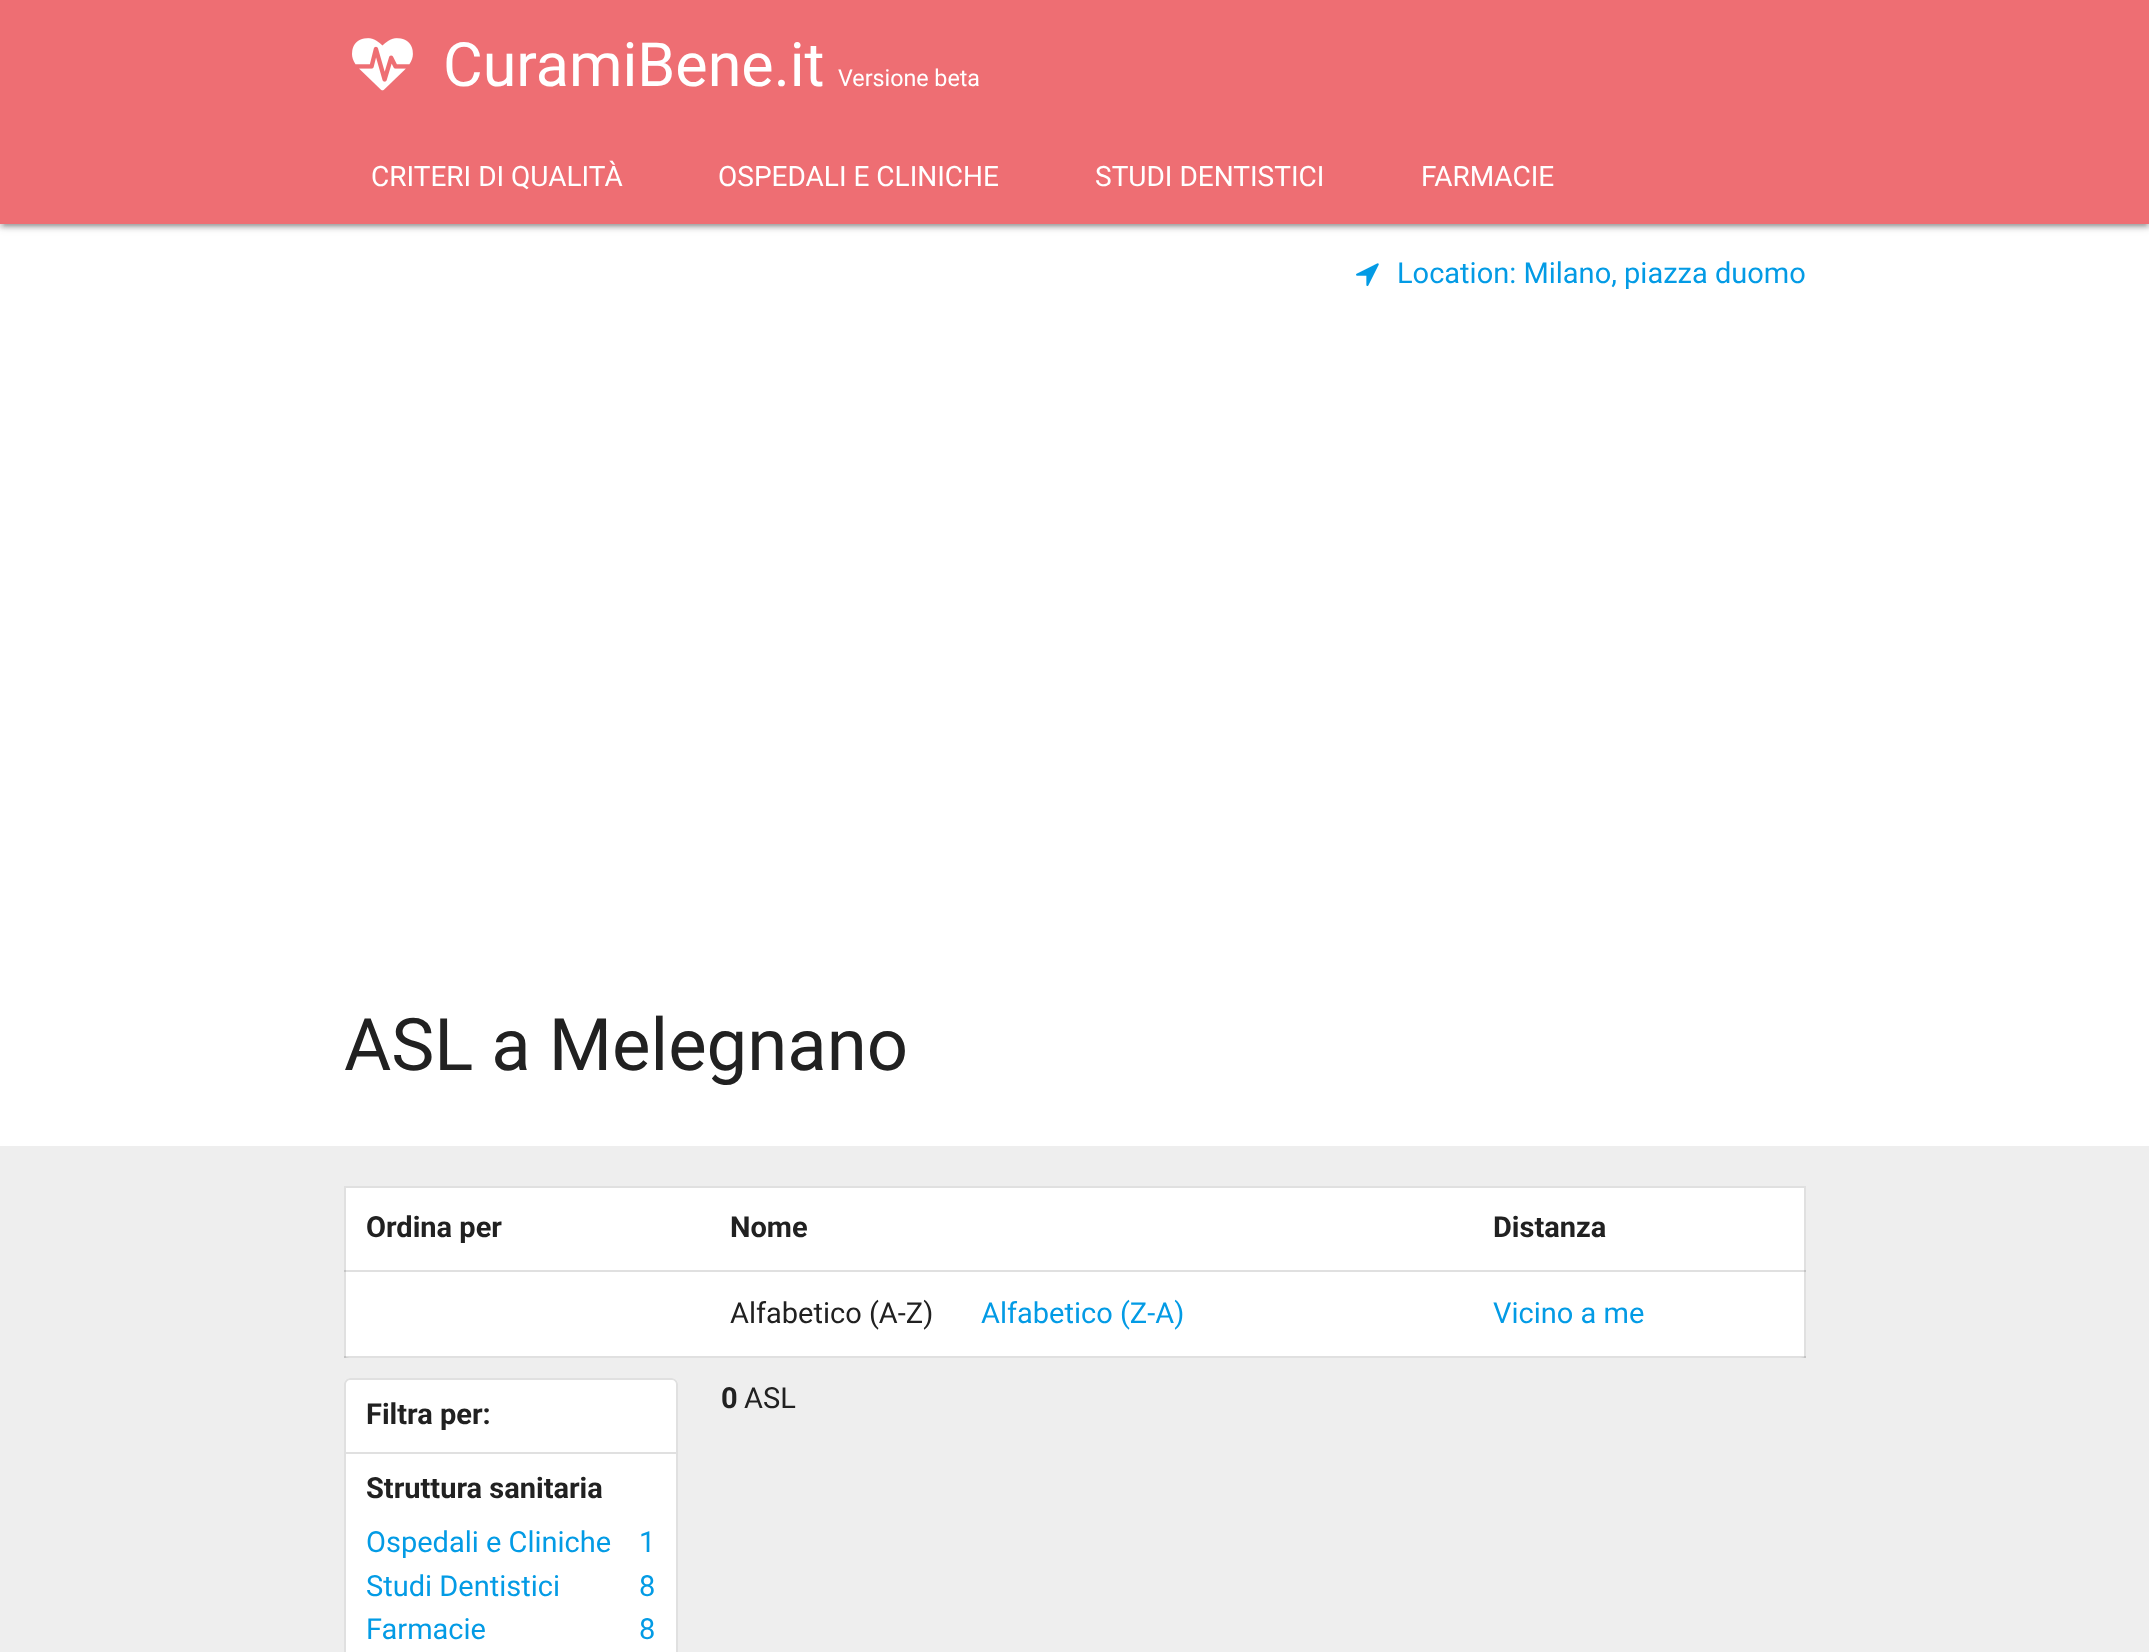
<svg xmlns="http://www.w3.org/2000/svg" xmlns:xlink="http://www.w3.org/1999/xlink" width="2149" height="1652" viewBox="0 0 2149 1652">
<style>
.cls-1{font:61px Roboto;fill:#ffffff}
.cls-2{font:23.25px Roboto;fill:#ffffff}
.cls-3{font:28px Roboto;fill:#ffffff}
.cls-4{font:29px Roboto;fill:#039be5}
.cls-5{font:72.5px Roboto;fill:#212121}
.cls-6{font:bold 29px Roboto;fill:#212121}
.cls-7{font:29px Roboto;fill:#212121}
</style>
<rect width="100%" height="100%" fill="#eeeeee"/>
<rect fill="#ffffff" x="0" y="224" width="2149" height="922"/>
<rect fill="#000000" fill-opacity="0.2" filter="blur(5px)" x="0" y="2" width="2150" height="224"/>
<rect fill="#000000" fill-opacity="0.12" filter="blur(1px)" x="4" y="10" width="2142" height="216"/>
<rect fill="#000000" fill-opacity="0.14" filter="blur(2px)" x="0" y="4" width="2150" height="224"/>
<rect fill="#ee6e73" x="0" y="0" width="2149" height="224"/>
<image xlink:href="image0.png" x="352" y="38" width="61" height="53"/>
<image xlink:href="image1.png" x="1356" y="263" width="23" height="24"/>
<rect fill="#ffffff" x="344" y="1186" width="1462" height="172" rx="6"/>
<rect fill="#e0e0e0" x="344" y="1270" width="1462" height="2"/>
<rect fill="#e0e0e0" x="344" y="1186" width="1462" height="2"/>
<rect fill="#e0e0e0" x="1804" y="1186" width="2" height="172"/>
<rect fill="#c5c5c5" x="1804" y="1270" width="2" height="2"/>
<rect fill="#e0e0e0" x="344" y="1186" width="2" height="172"/>
<rect fill="#c5c5c5" x="344" y="1270" width="2" height="2"/>
<rect fill="#000000" fill-opacity="0.12" x="344" y="1356" width="1462" height="2"/>
<rect fill="#ffffff" x="344" y="1378" width="334" height="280" rx="6"/>
<path fill="#e0e0e0" fill-rule="evenodd" d="M350 1378H672C675 1378 678 1381 678 1384V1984C678 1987 675 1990 672 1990H350C347 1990 344 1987 344 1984V1384C344 1381 347 1378 350 1378ZM350 1380H672C674 1380 676 1382 676 1384V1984C676 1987 674 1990 672 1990H350C348 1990 346 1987 346 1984V1384C346 1382 348 1380 350 1380Z"/>
<rect fill="#e0e0e0" x="346" y="1452" width="330" height="2"/>
<text class="cls-1" x="443" y="86">CuramiBene.it</text>
<text class="cls-2" x="838" y="86">Versione beta</text>
<text class="cls-3" x="371" y="186">CRITERI DI QUALITÀ</text>
<text class="cls-3" x="718" y="186">OSPEDALI E CLINICHE</text>
<text class="cls-3" x="1095" y="186">STUDI DENTISTICI</text>
<text class="cls-3" x="1421" y="186">FARMACIE</text>
<text class="cls-4" x="1397" y="283">Location: Milano, piazza duomo</text>
<text class="cls-5" x="344" y="1070">ASL a Melegnano</text>
<text class="cls-6" x="366" y="1237">Ordina per</text>
<text class="cls-6" x="730" y="1237">Nome</text>
<text class="cls-6" x="1493" y="1237">Distanza</text>
<text class="cls-7" x="730" y="1323">Alfabetico (A-Z)</text>
<text class="cls-4" x="981" y="1323">Alfabetico (Z-A)</text>
<text class="cls-4" x="1493" y="1323">Vicino a me</text>
<text class="cls-6" x="721" y="1408">0</text>
<text class="cls-7" x="744" y="1408">ASL</text>
<text class="cls-6" x="366" y="1424">Filtra per:</text>
<text class="cls-6" x="366" y="1498">Struttura sanitaria</text>
<text class="cls-4" x="366" y="1552">Ospedali e Cliniche</text>
<text class="cls-4" x="639" y="1552">1</text>
<text class="cls-4" x="366" y="1596">Studi Dentistici</text>
<text class="cls-4" x="639" y="1596">8</text>
<text class="cls-4" x="366" y="1639">Farmacie</text>
<text class="cls-4" x="639" y="1639">8</text>
</svg>
